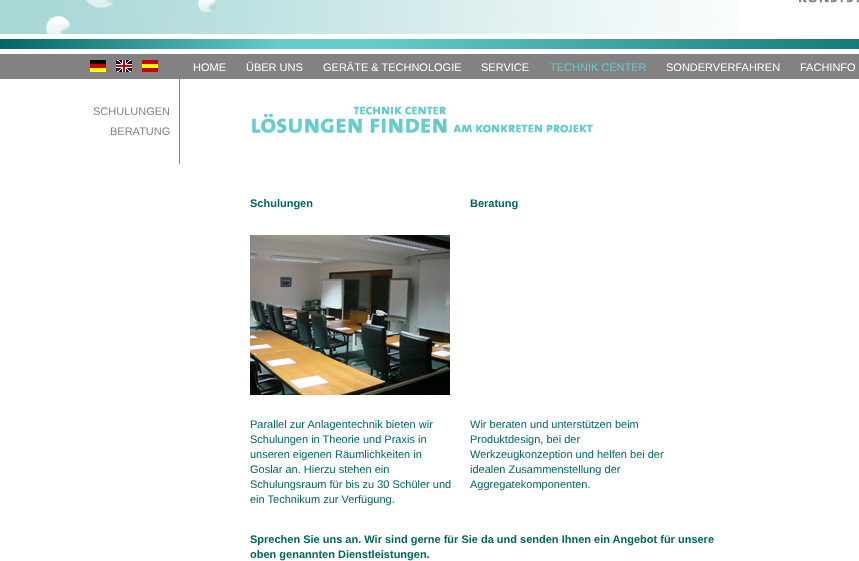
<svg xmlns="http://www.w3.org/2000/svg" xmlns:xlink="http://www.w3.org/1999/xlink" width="859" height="561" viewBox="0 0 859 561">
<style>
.cls-1{font:11px Liberation Sans;fill:#ffffff}
.cls-2{font:11px Liberation Sans;fill:#66cccc}
.cls-3{font:11px Liberation Sans;fill:#828282}
.cls-4{font:bold 11px Liberation Sans;fill:#006666}
.cls-5{font:11px Liberation Sans;fill:#006666}
</style>
<rect width="100%" height="100%" fill="#ffffff"/>
<image xlink:href="image0.png" x="0" y="0" width="738" height="34"/>
<image xlink:href="image1.png" x="799" y="0" width="60" height="3"/>
<image xlink:href="image2.png" x="0" y="39" width="859" height="10"/>
<rect fill="#828282" x="0" y="54" width="859" height="25"/>
<image xlink:href="image3.png" x="90" y="60" width="16" height="12"/>
<image xlink:href="image4.png" x="116" y="60" width="16" height="12"/>
<image xlink:href="image5.png" x="142" y="60" width="16" height="12"/>
<rect fill="#828282" x="179" y="79" width="1" height="85"/>
<image xlink:href="image6.png" x="250" y="104" width="344" height="31"/>
<image xlink:href="image7.png" x="250" y="235" width="200" height="160"/>
<text class="cls-1" x="193" y="71">HOME</text>
<text class="cls-1" x="246" y="71">ÜBER UNS</text>
<text class="cls-1" x="323" y="71">GERÄTE &amp; TECHNOLOGIE</text>
<text class="cls-1" x="481" y="71">SERVICE</text>
<text class="cls-2" x="550" y="71">TECHNIK CENTER</text>
<text class="cls-1" x="666" y="71">SONDERVERFAHREN</text>
<text class="cls-1" x="800" y="71">FACHINFO</text>
<text class="cls-3" x="93" y="115">SCHULUNGEN</text>
<text class="cls-3" x="110" y="135">BERATUNG</text>
<text class="cls-4" x="250" y="207">Schulungen</text>
<text class="cls-4" x="470" y="207">Beratung</text>
<text class="cls-5"><tspan x="250" y="428">Parallel zur Anlagentechnik bieten wir</tspan><tspan x="250" y="443">Schulungen in Theorie und Praxis in</tspan><tspan x="250" y="458">unseren eigenen Räumlichkeiten in</tspan><tspan x="250" y="473">Goslar an. Hierzu stehen ein</tspan><tspan x="250" y="488">Schulungsraum für bis zu 30 Schüler und</tspan><tspan x="250" y="503">ein Technikum zur Verfügung.</tspan></text>
<text class="cls-5"><tspan x="470" y="428">Wir beraten und unterstützen beim</tspan><tspan x="470" y="443">Produktdesign, bei der</tspan><tspan x="470" y="458">Werkzeugkonzeption und helfen bei der</tspan><tspan x="470" y="473">idealen Zusammenstellung der</tspan><tspan x="470" y="488">Aggregatekomponenten.</tspan></text>
<text class="cls-4"><tspan x="250" y="543">Sprechen Sie uns an. Wir sind gerne für Sie da und senden Ihnen ein Angebot für unsere</tspan><tspan x="250" y="558">oben genannten Dienstleistungen.</tspan></text>
</svg>
